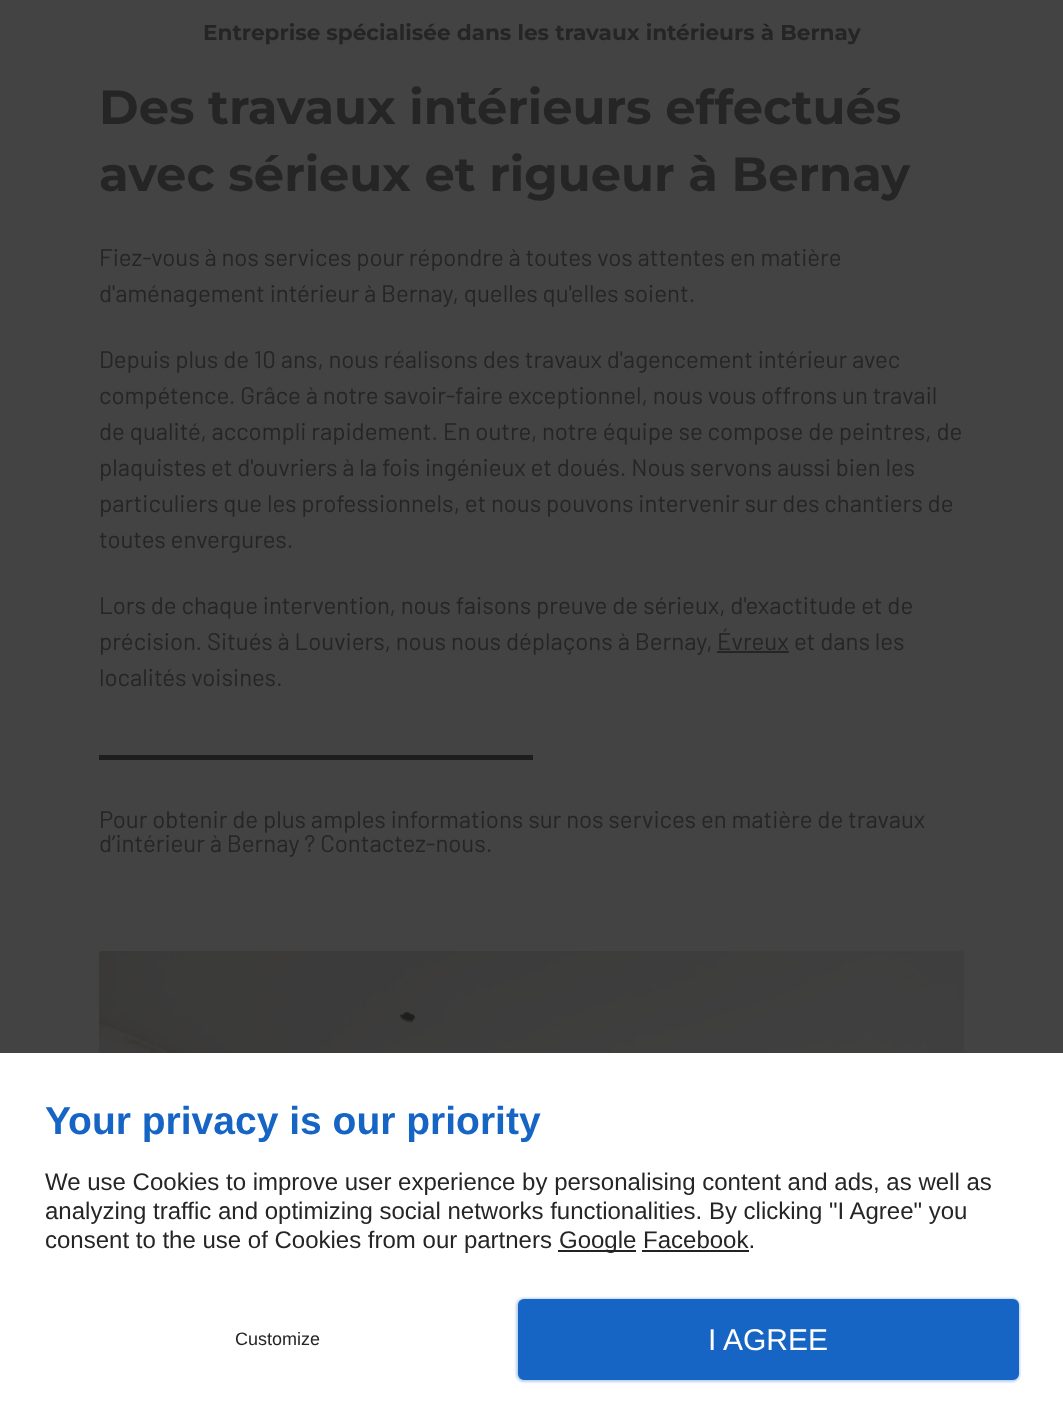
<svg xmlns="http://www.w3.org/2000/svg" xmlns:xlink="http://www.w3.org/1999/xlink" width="1063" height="1425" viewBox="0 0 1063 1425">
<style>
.cls-1{font:bold 21.6px Montserrat;fill:#252525}
.cls-2{font:bold 48px Montserrat;fill:#252525}
.cls-3{font:24px Barlow;fill:#252525}
.cls-4{font:bold 39px Liberation Sans;fill:#1665c4}
.cls-5{font:24px Liberation Sans;fill:#252525}
.cls-6{font:18px Liberation Sans;fill:#252525}
.cls-7{font:30px Liberation Sans;fill:#ffffff}
</style>
<rect width="100%" height="100%" fill="#434343"/>
<rect fill="#252525" x="717" y="651" width="72" height="2"/>
<rect fill="#1d1d1d" x="99" y="755" width="434" height="5"/>
<image xlink:href="image0.png" x="99" y="951" width="866" height="102"/>
<rect fill="#ffffff" x="0" y="1053" width="1063" height="372"/>
<rect fill="#222222" x="558" y="1250" width="78" height="2"/>
<rect fill="#1665c4" fill-opacity="0.3" filter="blur(1px)" x="516" y="1298" width="504" height="84" rx="8"/>
<rect fill="#1665c4" stroke="#1665c4" stroke-width="3" x="519.5" y="1300.5" width="498" height="78" rx="4.5"/>
<text class="cls-1" x="203" y="40">Entreprise spécialisée dans les travaux intérieurs à Bernay</text>
<text class="cls-2"><tspan x="99" y="124">Des travaux intérieurs effectués</tspan><tspan x="99" y="191">avec sérieux et rigueur à Bernay</tspan></text>
<text class="cls-3"><tspan x="99" y="266">Fiez-vous à nos services pour répondre à toutes vos attentes en matière</tspan><tspan x="99" y="302">d'aménagement intérieur à Bernay, quelles qu'elles soient.</tspan></text>
<text class="cls-3"><tspan x="99" y="368">Depuis plus de 10 ans, nous réalisons des travaux d'agencement intérieur avec</tspan><tspan x="99" y="404">compétence. Grâce à notre savoir-faire exceptionnel, nous vous offrons un travail</tspan><tspan x="99" y="440">de qualité, accompli rapidement. En outre, notre équipe se compose de peintres, de</tspan><tspan x="99" y="476">plaquistes et d'ouvriers à la fois ingénieux et doués. Nous servons aussi bien les</tspan><tspan x="99" y="512">particuliers que les professionnels, et nous pouvons intervenir sur des chantiers de</tspan><tspan x="99" y="548">toutes envergures.</tspan></text>
<text class="cls-3"><tspan x="99" y="614">Lors de chaque intervention, nous faisons preuve de sérieux, d'exactitude et de</tspan><tspan x="99" y="650">précision. Situés à Louviers, nous nous déplaçons à Bernay,</tspan></text>
<text class="cls-3" x="717" y="650">Évreux</text>
<text class="cls-3" x="794" y="650">et dans les</text>
<text class="cls-3" x="99" y="686">localités voisines.</text>
<text class="cls-3"><tspan x="99" y="828">Pour obtenir de plus amples informations sur nos services en matière de travaux</tspan><tspan x="99" y="852">d’intérieur à Bernay ? Contactez-nous.</tspan></text>
<text class="cls-4" x="45" y="1134">Your privacy is our priority</text>
<text class="cls-5"><tspan x="45" y="1190">We use Cookies to improve user experience by personalising content and ads, as well as</tspan><tspan x="45" y="1219">analyzing traffic and optimizing social networks functionalities. By clicking "I Agree" you</tspan><tspan x="45" y="1248">consent to the use of Cookies from our partners</tspan></text>
<text class="cls-5" x="559" y="1248">Google Facebook.</text>
<rect fill="#222222" x="642" y="1250" width="107" height="2"/>
<text class="cls-6" x="235" y="1345">Customize</text>
<text class="cls-7" x="708" y="1350">I AGREE</text>
</svg>
